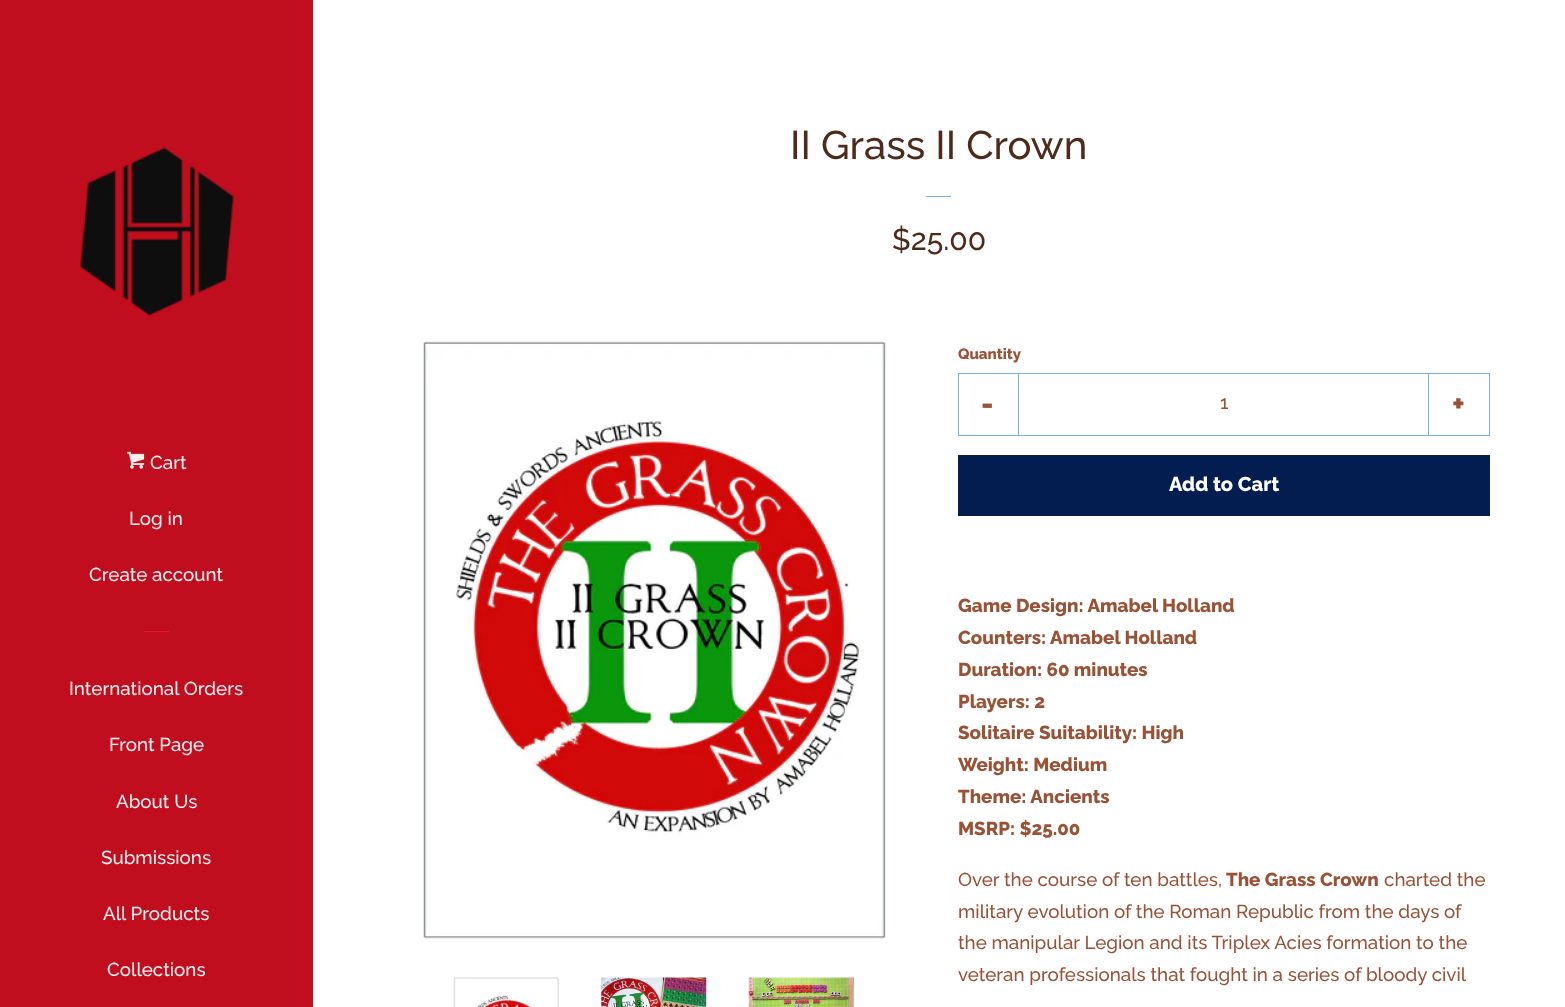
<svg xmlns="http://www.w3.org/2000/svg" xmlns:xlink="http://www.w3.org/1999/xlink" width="1565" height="1007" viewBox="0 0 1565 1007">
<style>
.cls-1{font:500 18.75px Raleway;fill:#f8f0f0}
.cls-2{font:500 40px Raleway;fill:#4e2a1b}
.cls-3{font:500 30px Raleway;fill:#4e2a1b}
.cls-4{font:800 15px Raleway;fill:#995236}
.cls-5{font:800 30px Raleway;fill:#995236}
.cls-6{font:500 18.75px Raleway;fill:#995236}
.cls-7{font:800 20px Raleway;fill:#ffffff}
.cls-8{font:800 18.75px Raleway;fill:#995236}
</style>
<rect width="100%" height="100%" fill="#ffffff"/>
<rect fill="#c10e1f" x="0" y="0" width="313" height="1007"/>
<image xlink:href="image0.png" x="79" y="147" width="155" height="169"/>
<image xlink:href="image1.png" x="127" y="451" width="18" height="18"/>
<rect fill="#ee1429" x="144" y="631" width="25" height="1"/>
<rect fill="#74b3e6" x="926" y="196" width="25" height="1"/>
<image xlink:href="image2.png" x="423" y="341" width="463" height="598"/>
<image xlink:href="image3.png" x="453" y="977" width="106" height="30"/>
<image xlink:href="image4.png" x="601" y="977" width="106" height="30"/>
<image xlink:href="image5.png" x="748" y="977" width="106" height="30"/>
<rect fill="none" stroke="#74b3e6" x="958.5" y="373.5" width="531" height="62"/>
<rect fill="#74b3e6" x="1018" y="373" width="1" height="63"/>
<rect fill="#74b3e6" x="1428" y="373" width="1" height="63"/>
<rect fill="#041d51" x="958" y="455" width="532" height="61"/>
<text class="cls-1" x="150" y="469">Cart</text>
<text class="cls-1" x="129" y="525">Log in</text>
<text class="cls-1" x="89" y="581">Create account</text>
<text class="cls-1" x="69" y="695">International Orders</text>
<text class="cls-1" x="109" y="751">Front Page</text>
<text class="cls-1" x="116" y="808">About Us</text>
<text class="cls-1" x="101" y="864">Submissions</text>
<text class="cls-1" x="103" y="920">All Products</text>
<text class="cls-1" x="107" y="976">Collections</text>
<text class="cls-2" x="790" y="159">II Grass II Crown</text>
<text class="cls-3" x="892" y="250">$25.00</text>
<text class="cls-4" x="958" y="359">Quantity</text>
<text class="cls-5" x="981" y="414">-</text>
<text class="cls-6" x="1220" y="409">1</text>
<text class="cls-5" x="1452" y="414">+</text>
<text class="cls-7" x="1169" y="491">Add to Cart</text>
<text class="cls-8"><tspan x="958" y="612">Game Design: Amabel Holland</tspan><tspan x="958" y="644">Counters: Amabel Holland</tspan><tspan x="958" y="676">Duration: 60 minutes</tspan><tspan x="958" y="708">Players: 2</tspan><tspan x="958" y="739">Solitaire Suitability: High</tspan><tspan x="958" y="771">Weight: Medium</tspan><tspan x="958" y="803">Theme: Ancients</tspan><tspan x="958" y="835">MSRP: $25.00</tspan></text>
<text class="cls-6" x="958" y="886">Over the course of ten battles,</text>
<text class="cls-8" x="1226" y="886">The Grass Crown</text>
<text class="cls-6" x="1384" y="886">charted the</text>
<text class="cls-6"><tspan x="958" y="918">military evolution of the Roman Republic from the days of</tspan><tspan x="958" y="949">the manipular Legion and its Triplex Acies formation to the</tspan><tspan x="958" y="981">veteran professionals that fought in a series of bloody civil</tspan></text>
</svg>
